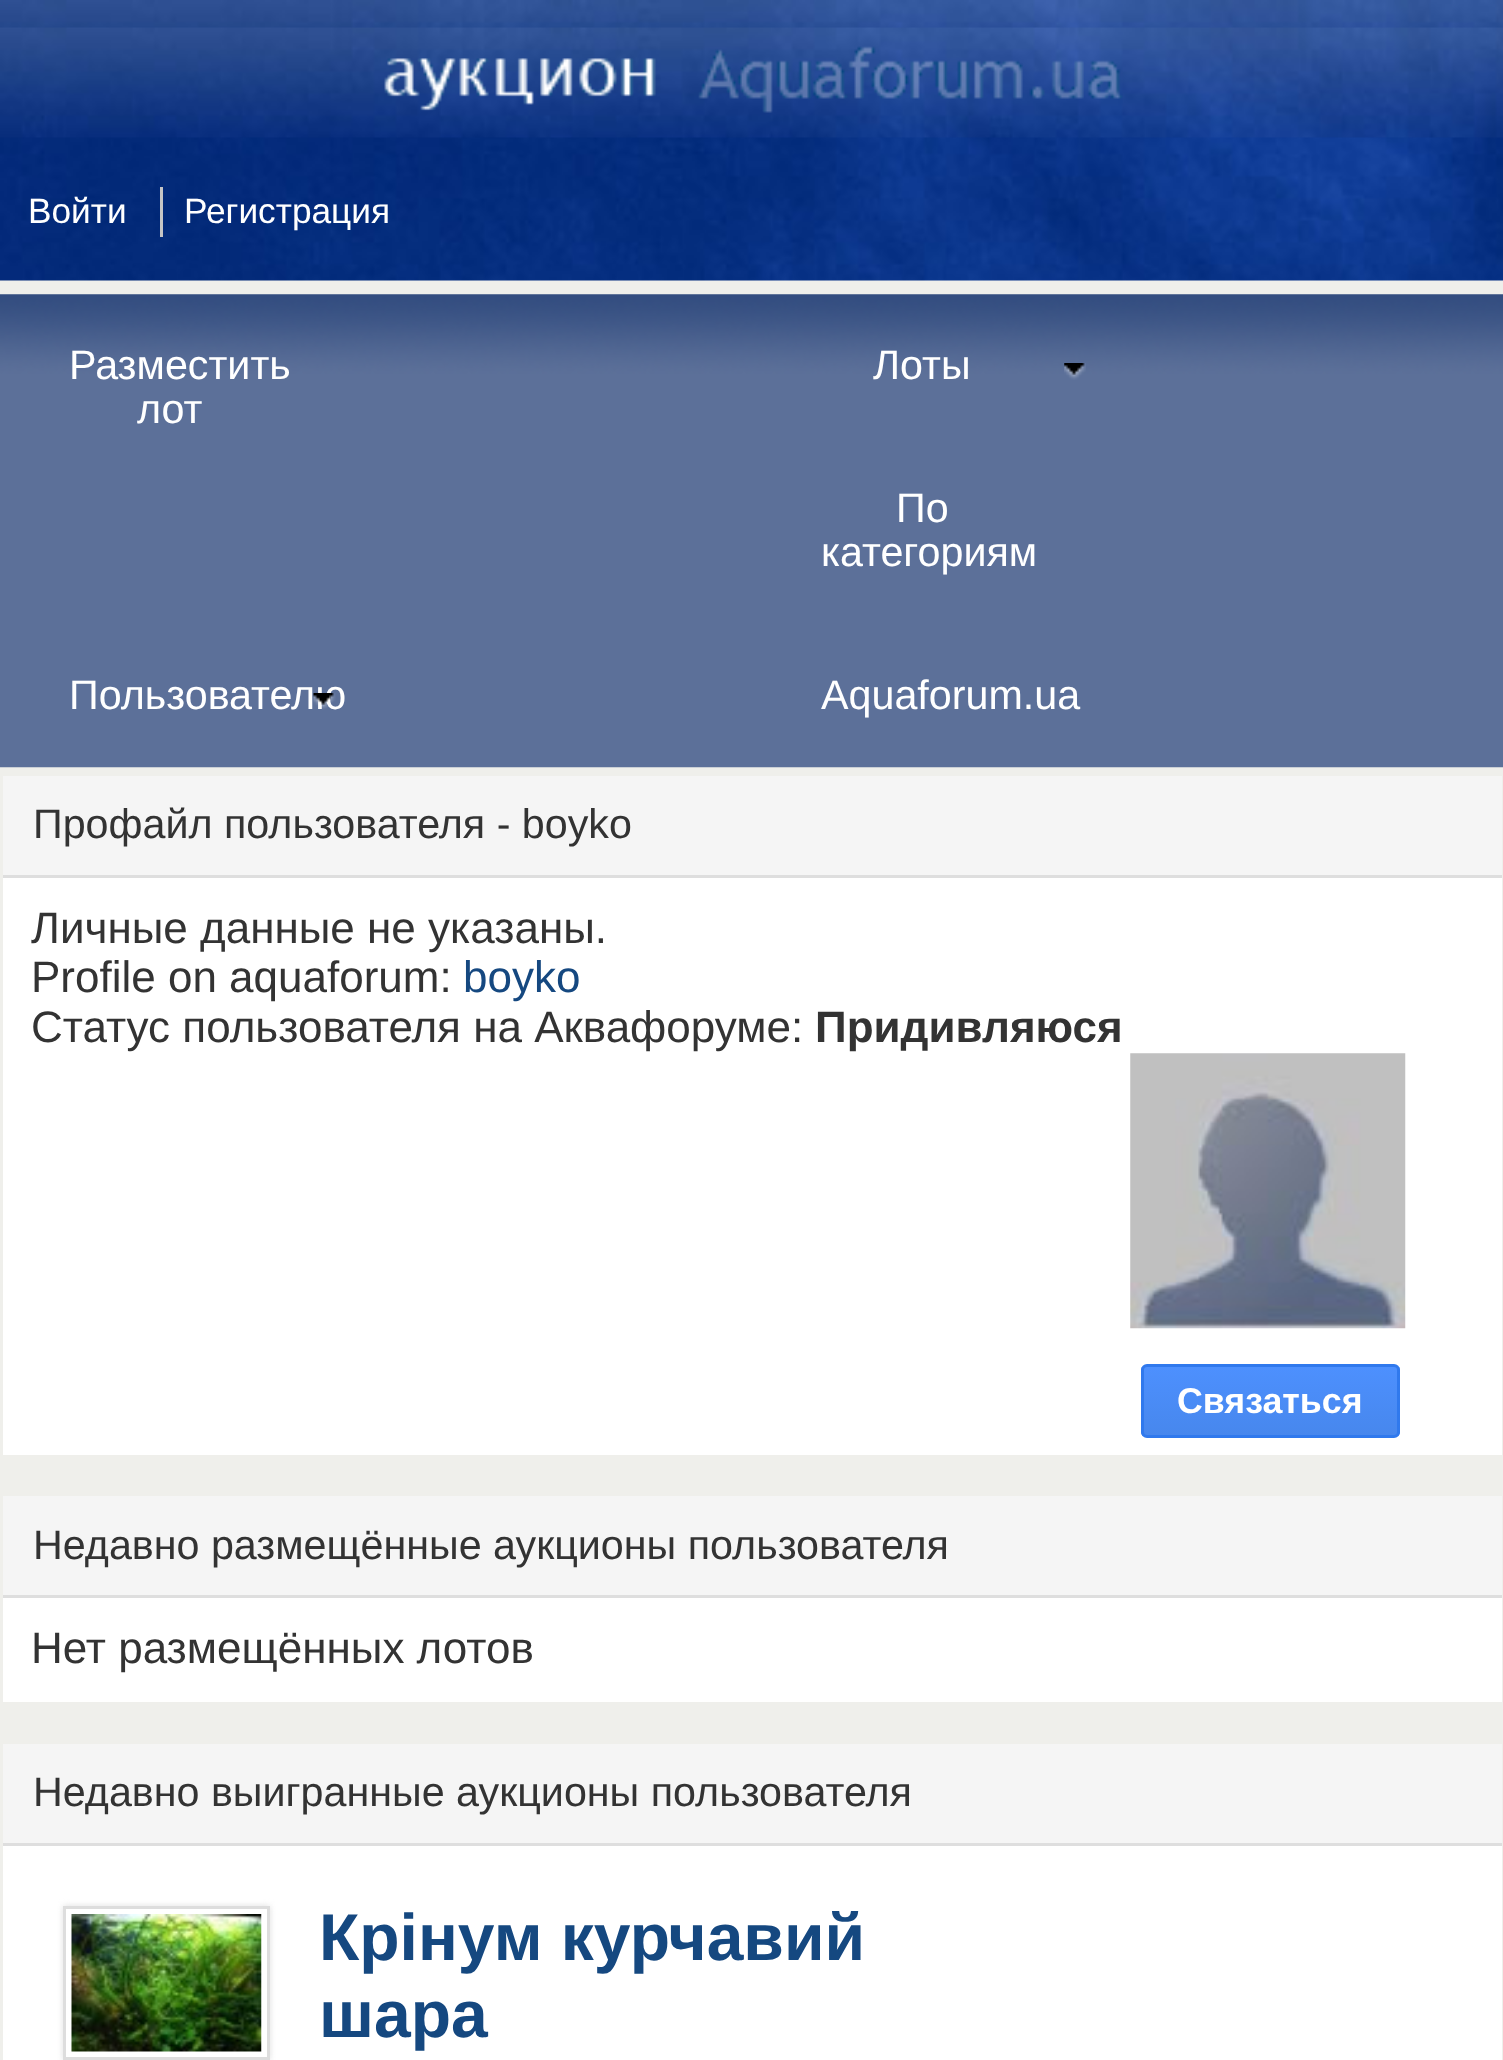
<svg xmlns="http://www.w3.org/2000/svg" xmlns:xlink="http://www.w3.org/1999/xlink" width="1503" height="2060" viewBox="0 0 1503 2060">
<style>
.cls-1{font:35.25px Liberation Sans;fill:#ffffff}
.cls-2{font:41.25px Liberation Sans;fill:#ffffff}
.cls-3{font:41.25px Liberation Sans;fill:#333333}
.cls-4{font:44px Liberation Sans;fill:#333333}
.cls-5{font:44px Liberation Sans;fill:#154880}
.cls-6{font:bold 44px Liberation Sans;fill:#333333}
.cls-7{font:bold 35.75px Liberation Sans;fill:#ffffff}
.cls-8{font:bold 66px Liberation Sans;fill:#154880}
</style>
<defs>
<clipPath id="clip1"><rect x="1141" y="1364" width="259" height="74" rx="6"/></clipPath>
<linearGradient id="g1" gradientUnits="userSpaceOnUse" x1="1271" y1="1367" x2="1271" y2="1436"><stop offset="0" stop-color="#4d90fe"/><stop offset="1" stop-color="#4787ed"/></linearGradient>
</defs>
<rect width="100%" height="100%" fill="#efefeb"/>
<image xlink:href="image0.png" x="0" y="0" width="1503" height="281"/>
<image xlink:href="image1.png" x="0" y="27" width="1503" height="111"/>
<image xlink:href="image2.png" x="384" y="46" width="739" height="67"/>
<rect fill="#c5c5c5" x="160" y="187" width="3" height="50"/>
<image xlink:href="image3.png" x="0" y="294" width="1503" height="474"/>
<image xlink:href="image4.png" x="1064" y="363" width="22" height="17"/>
<rect fill="#ffffff" x="3" y="878" width="1499" height="577"/>
<rect fill="#f5f5f5" x="3" y="776" width="1499" height="99"/>
<rect fill="#dedede" x="3" y="875" width="1499" height="3"/>
<image xlink:href="image6.png" x="1130" y="1053" width="276" height="276"/>
<g clip-path="url(#clip1)">
<rect fill="url(#g1)" x="1141" y="1367" width="259" height="69"/>
</g>
<rect fill="none" stroke="#3079ed" stroke-width="3" x="1142.5" y="1365.5" width="256" height="71" rx="4.5"/>
<rect fill="#ffffff" x="3" y="1598" width="1499" height="104"/>
<rect fill="#f5f5f5" x="3" y="1496" width="1499" height="99"/>
<rect fill="#dedede" x="3" y="1595" width="1499" height="3"/>
<rect fill="#ffffff" x="3" y="1846" width="1499" height="214"/>
<rect fill="#f5f5f5" x="3" y="1744" width="1499" height="99"/>
<rect fill="#dedede" x="3" y="1843" width="1499" height="3"/>
<rect fill="#dedede" filter="blur(3px)" x="63" y="1906" width="207" height="154"/>
<rect fill="#ffffff" stroke="#dddddd" stroke-width="3" x="64.5" y="1907.5" width="204" height="151"/>
<image xlink:href="image7.png" x="71" y="1914" width="191" height="138"/>
<text class="cls-1" x="28" y="223">Войти</text>
<text class="cls-1" x="184" y="223">Регистрация</text>
<text class="cls-2" x="69" y="379">Разместить</text>
<text class="cls-2" x="137" y="423">лот</text>
<text class="cls-2" x="873" y="379">Лоты</text>
<text class="cls-2" x="896" y="522">По</text>
<text class="cls-2" x="821" y="566">категориям</text>
<text class="cls-2" x="69" y="709">Пользователю</text>
<image xlink:href="image5.png" x="313" y="693" width="23" height="17"/>
<text class="cls-2" x="821" y="709">Aquaforum.ua</text>
<text class="cls-3" x="33" y="838">Профайл пользователя - boyko</text>
<text class="cls-4"><tspan x="31" y="943">Личные данные не указаны.</tspan><tspan x="31" y="992">Profile on aquaforum:</tspan></text>
<text class="cls-5" x="463" y="992">boyko</text>
<text class="cls-4" x="31" y="1042">Статус пользователя на Аквафоруме:</text>
<text class="cls-6" x="815" y="1042">Придивляюся</text>
<text class="cls-7" x="1177" y="1413">Связаться</text>
<text class="cls-3" x="33" y="1559">Недавно размещённые аукционы пользователя</text>
<text class="cls-4" x="31" y="1663">Нет размещённых лотов</text>
<text class="cls-3" x="33" y="1806">Недавно выигранные аукционы пользователя</text>
<text class="cls-8"><tspan x="319" y="1960">Крінум курчавий</tspan><tspan x="319" y="2037">шара</tspan></text>
</svg>
